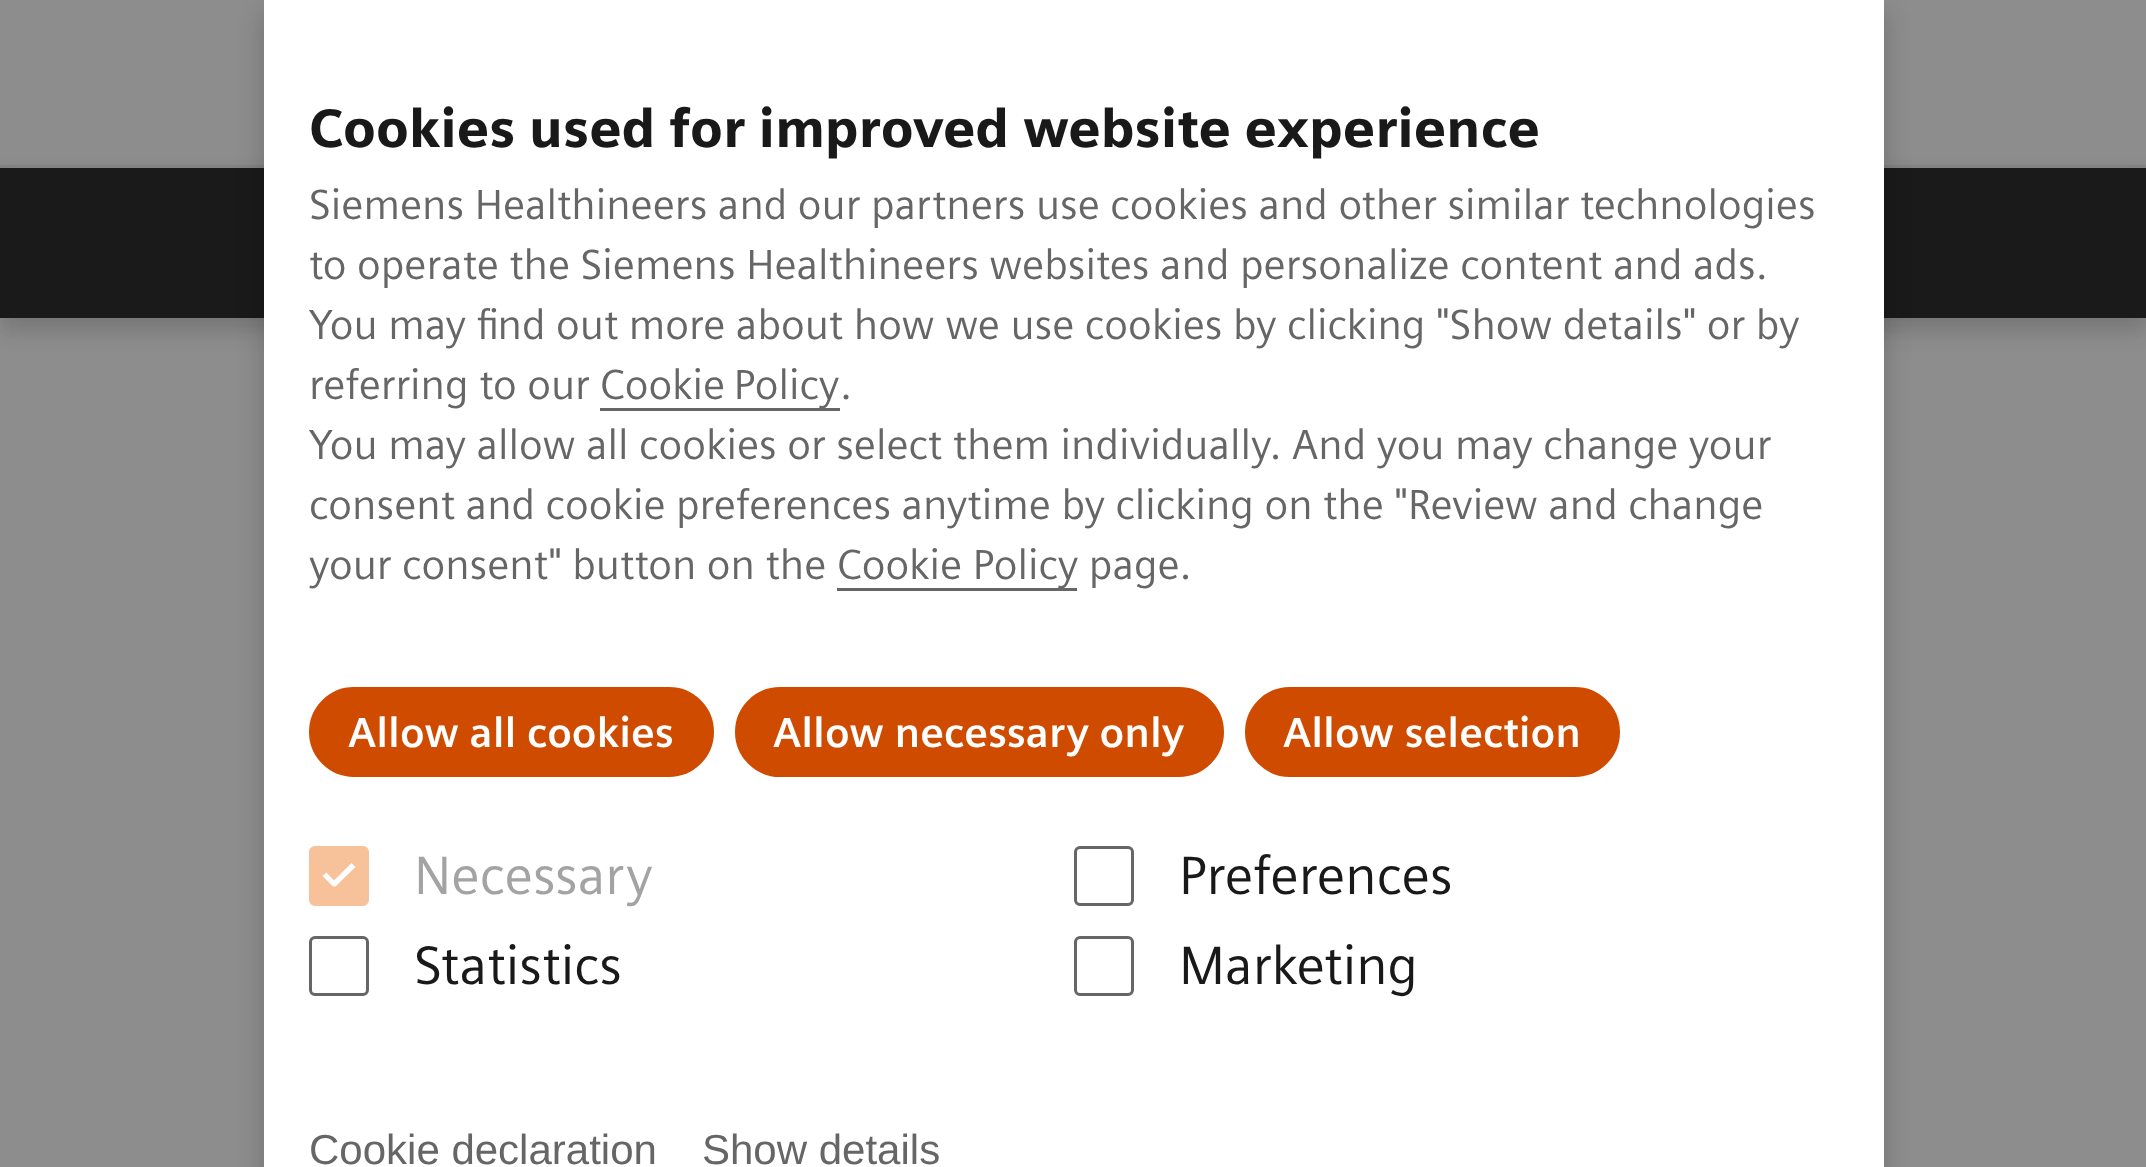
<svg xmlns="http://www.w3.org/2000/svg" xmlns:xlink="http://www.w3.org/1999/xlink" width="2146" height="1167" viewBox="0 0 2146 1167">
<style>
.cls-1{font:900 54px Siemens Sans;fill:#1a1919}
.cls-2{font:42px Siemens Sans;fill:#666666}
.cls-3{font:bold 42px Siemens Sans;fill:#ffffff}
.cls-4{font:54px Siemens Sans;fill:#a3a3a3}
.cls-5{font:54px Siemens Sans;fill:#1a1919}
.cls-6{font:42px Liberation Sans;fill:#666666}
</style>
<rect width="100%" height="100%" fill="#8d8d8d"/>
<rect fill="#848484" x="0" y="165" width="2146" height="3"/>
<rect fill="#1b1b1b" fill-opacity="0.2" filter="blur(11px)" x="0" y="180" width="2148" height="150"/>
<rect fill="#1a1a1a" x="0" y="168" width="2146" height="150"/>
<rect fill="#000000" fill-opacity="0.2" filter="blur(13.5px)" x="264" y="12" width="1620" height="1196"/>
<rect fill="#ffffff" x="264" y="0" width="1620" height="1167"/>
<rect fill="#666666" x="600" y="408" width="240" height="3"/>
<rect fill="#666666" x="837" y="588" width="240" height="3"/>
<rect fill="#cf4b00" stroke="#cf4b00" stroke-width="3" x="310.5" y="688.5" width="402" height="87" rx="43.5"/>
<rect fill="#cf4b00" stroke="#cf4b00" stroke-width="3" x="736.5" y="688.5" width="486" height="87" rx="43.5"/>
<rect fill="#cf4b00" stroke="#cf4b00" stroke-width="3" x="1246.5" y="688.5" width="372" height="87" rx="43.5"/>
<rect fill="#f7c29a" stroke="#f7c29a" stroke-width="3" x="310.5" y="847.5" width="57" height="57" rx="4.5"/>
<path fill="#ffffff" d="M355.5 867L339.5 882.5C335.5 886.5 334.5 888.5 330.5 884L322.5 876L326.5 872.5L334 880.5L351.5 863Z"/>
<rect fill="none" stroke="#666666" stroke-width="3" x="1075.5" y="847.5" width="57" height="57" rx="4.5"/>
<rect fill="none" stroke="#666666" stroke-width="3" x="310.5" y="937.5" width="57" height="57" rx="4.5"/>
<rect fill="none" stroke="#666666" stroke-width="3" x="1075.5" y="937.5" width="57" height="57" rx="4.5"/>
<text class="cls-1" x="309" y="147">Cookies used for improved website experience</text>
<text class="cls-2"><tspan x="309" y="219">Siemens Healthineers and our partners use cookies and other similar technologies</tspan><tspan x="309" y="279">to operate the Siemens Healthineers websites and personalize content and ads.</tspan><tspan x="309" y="339">You may find out more about how we use cookies by clicking "Show details" or by</tspan><tspan x="309" y="399">referring to our</tspan></text>
<text class="cls-2" x="600" y="399" word-spacing="-2">Cookie Policy</text>
<text class="cls-2" x="840" y="399">.</text>
<text class="cls-2"><tspan x="309" y="459">You may allow all cookies or select them individually. And you may change your</tspan><tspan x="309" y="519">consent and cookie preferences anytime by clicking on the "Review and change</tspan><tspan x="309" y="579">your consent" button on the</tspan></text>
<text class="cls-2" x="837" y="579">Cookie Policy page.</text>
<text class="cls-3" x="348" y="747">Allow all cookies</text>
<text class="cls-3" x="773" y="747">Allow necessary only</text>
<text class="cls-3" x="1283" y="747">Allow selection</text>
<text class="cls-4" x="414" y="894">Necessary</text>
<text class="cls-5" x="1179" y="894">Preferences</text>
<text class="cls-5" x="414" y="984">Statistics</text>
<text class="cls-5" x="1179" y="984">Marketing</text>
<text class="cls-6" x="309" y="1164">Cookie declaration</text>
<text class="cls-6" x="702" y="1164">Show details</text>
</svg>
